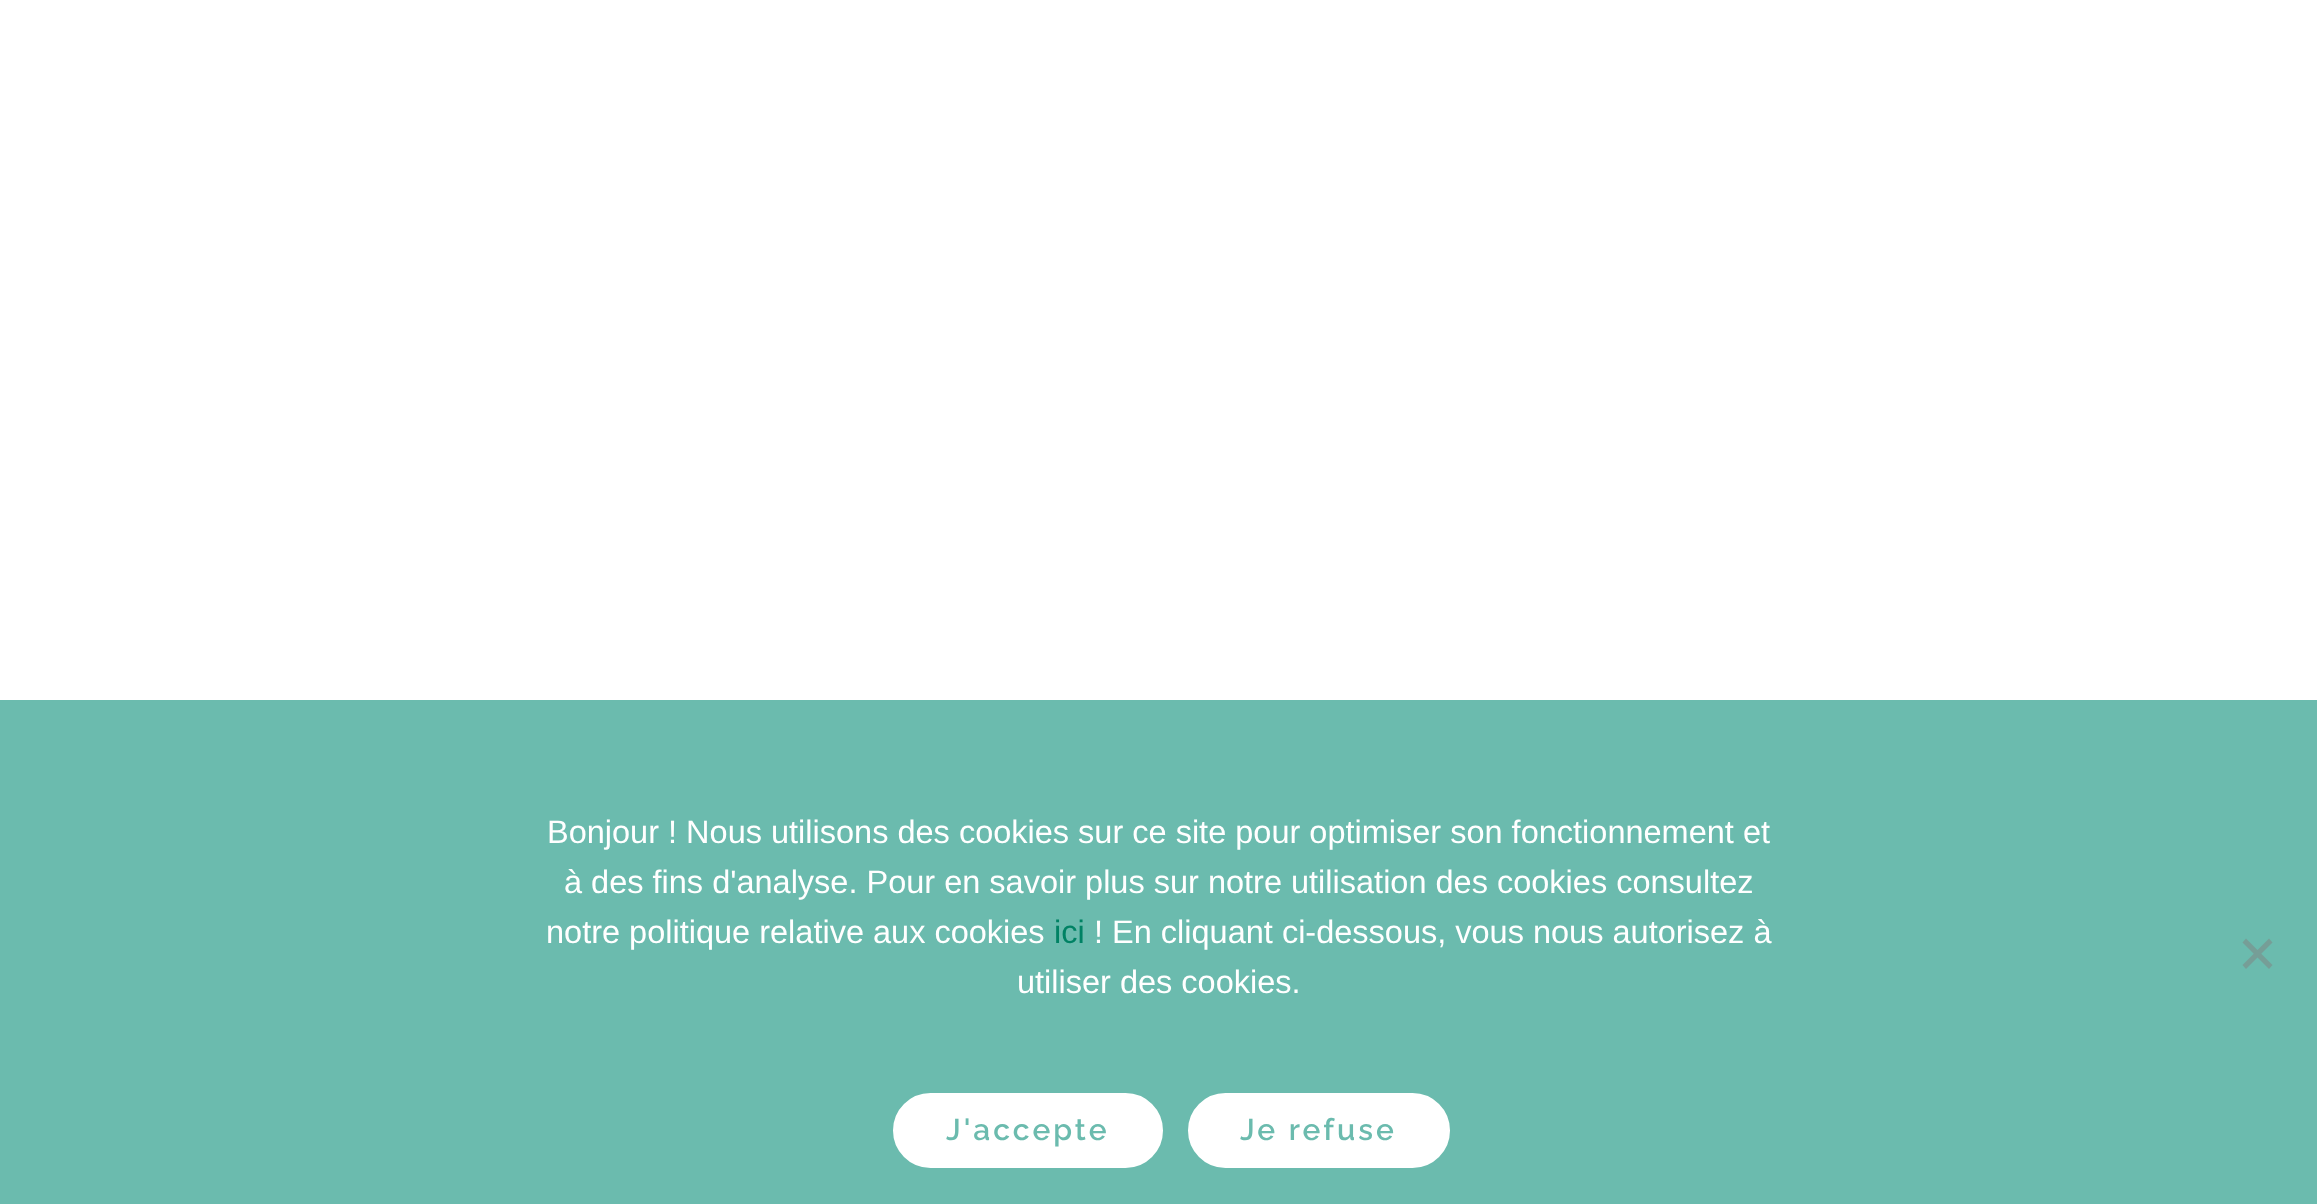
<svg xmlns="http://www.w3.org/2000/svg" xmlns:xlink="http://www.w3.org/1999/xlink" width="2317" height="1204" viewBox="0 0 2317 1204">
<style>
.cls-1{font:32.5px Liberation Sans;fill:#ffffff}
.cls-2{font:32.5px Liberation Sans;fill:#008264}
.cls-3{font:600 30px Raleway;letter-spacing:3px;fill:#6bbbae}
</style>
<rect width="100%" height="100%" fill="#ffffff"/>
<rect fill="#6bbbae" x="0" y="700" width="2317" height="504"/>
<path fill="#769e97" d="M2269 938.5L2272.5 942.5L2246 969L2242.5 965Z"/>
<path fill="#769e97" d="M2242.5 942.5L2246 938.5L2272.5 965L2269 969Z"/>
<rect fill="#ffffff" stroke="#ffffff" stroke-width="3" x="894.5" y="1094.5" width="267" height="72" rx="36"/>
<rect fill="#ffffff" stroke="#ffffff" stroke-width="3" x="1189.5" y="1094.5" width="259" height="72" rx="36"/>
<text class="cls-1" x="547" y="843">Bonjour ! Nous utilisons des cookies sur ce site pour optimiser son fonctionnement et</text>
<text class="cls-1" x="564" y="893">à des fins d'analyse. Pour en savoir plus sur notre utilisation des cookies consultez</text>
<text class="cls-1" x="546" y="943">notre politique relative aux cookies</text>
<text class="cls-2" x="1054" y="943">ici</text>
<text class="cls-1" x="1094" y="943">! En cliquant ci-dessous, vous nous autorisez à</text>
<text class="cls-1" x="1017" y="993">utiliser des cookies.</text>
<text class="cls-3" x="946" y="1140">J'accepte</text>
<text class="cls-3" x="1240" y="1140">Je refuse</text>
</svg>
